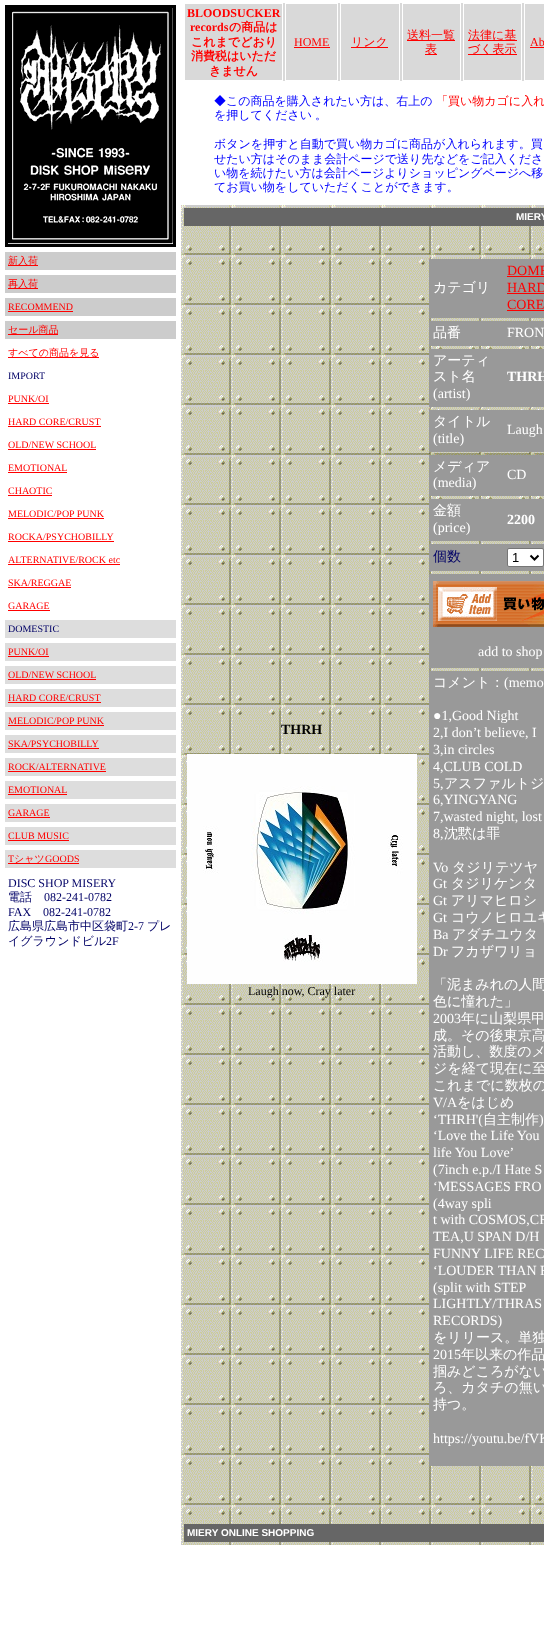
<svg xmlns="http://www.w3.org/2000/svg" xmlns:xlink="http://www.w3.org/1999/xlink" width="544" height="1629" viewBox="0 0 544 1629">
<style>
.cls-1{font:500 10px WenQuanYi Zen Hei;fill:#ff0000}
.cls-2{font:10px Liberation Serif;fill:#ff0000}
.cls-3{font:10px Liberation Serif;fill:#000066}
.cls-4{font:12px Liberation Serif;fill:#000066}
.cls-5{font:500 12px WenQuanYi Zen Hei;fill:#000066}
.cls-6{font:bold 12px Liberation Serif;fill:#ff0000}
.cls-7{font:bold 12px WenQuanYi Zen Hei;fill:#ff0000}
.cls-8{font:12px Liberation Serif;fill:#ff0000}
.cls-9{font:500 12px WenQuanYi Zen Hei;fill:#ff0000}
.cls-10{font:500 12px WenQuanYi Zen Hei;fill:#0000ff}
.cls-11{font:bold 10px Liberation Sans;fill:#ffffff}
.cls-12{font:bold 14px Liberation Serif;fill:#000000}
.cls-13{font:12px Liberation Serif;fill:#000000}
.cls-14{font:500 14px WenQuanYi Zen Hei;fill:#ffffff}
.cls-15{font:14px Liberation Serif;fill:#ff0000}
.cls-16{font:14px Liberation Serif;fill:#ffffff}
.cls-17{font:bold 14px Liberation Serif;fill:#ffffff}
.cls-18{font:500 14px WenQuanYi Zen Hei;fill:#000066}
.cls-19{font:13px Liberation Sans;fill:#000000}
</style>
<rect width="100%" height="100%" fill="#ffffff"/>
<rect fill="#000000" x="5" y="5" width="171" height="242"/>
<image xlink:href="image0.png" x="8" y="8" width="165" height="236"/>
<rect fill="#cccccc" x="5" y="252" width="171" height="18"/>
<rect fill="#ff0000" x="8" y="265" width="30" height="1"/>
<rect fill="#cccccc" x="5" y="275" width="171" height="18"/>
<rect fill="#ff0000" x="8" y="288" width="30" height="1"/>
<rect fill="#cccccc" x="5" y="298" width="171" height="18"/>
<rect fill="#ff0000" x="8" y="311" width="65" height="1"/>
<rect fill="#cccccc" x="5" y="321" width="171" height="18"/>
<rect fill="#ff0000" x="8" y="334" width="50" height="1"/>
<rect fill="#ff0000" x="8" y="357" width="91" height="1"/>
<rect fill="#ff0000" x="8" y="403" width="41" height="1"/>
<rect fill="#ff0000" x="8" y="426" width="93" height="1"/>
<rect fill="#ff0000" x="8" y="449" width="88" height="1"/>
<rect fill="#ff0000" x="8" y="472" width="59" height="1"/>
<rect fill="#ff0000" x="8" y="495" width="44" height="1"/>
<rect fill="#ff0000" x="8" y="518" width="96" height="1"/>
<rect fill="#ff0000" x="8" y="541" width="106" height="1"/>
<rect fill="#ff0000" x="8" y="564" width="112" height="1"/>
<rect fill="#ff0000" x="8" y="587" width="63" height="1"/>
<rect fill="#ff0000" x="8" y="610" width="42" height="1"/>
<rect fill="#dddddd" x="5" y="620" width="171" height="18"/>
<rect fill="#dddddd" x="5" y="643" width="171" height="18"/>
<rect fill="#ff0000" x="8" y="656" width="41" height="1"/>
<rect fill="#dddddd" x="5" y="666" width="171" height="18"/>
<rect fill="#ff0000" x="8" y="679" width="88" height="1"/>
<rect fill="#dddddd" x="5" y="689" width="171" height="18"/>
<rect fill="#ff0000" x="8" y="702" width="93" height="1"/>
<rect fill="#dddddd" x="5" y="712" width="171" height="18"/>
<rect fill="#ff0000" x="8" y="725" width="96" height="1"/>
<rect fill="#dddddd" x="5" y="735" width="171" height="18"/>
<rect fill="#ff0000" x="8" y="748" width="91" height="1"/>
<rect fill="#dddddd" x="5" y="758" width="171" height="18"/>
<rect fill="#ff0000" x="8" y="771" width="98" height="1"/>
<rect fill="#dddddd" x="5" y="781" width="171" height="18"/>
<rect fill="#ff0000" x="8" y="794" width="59" height="1"/>
<rect fill="#dddddd" x="5" y="804" width="171" height="18"/>
<rect fill="#ff0000" x="8" y="817" width="42" height="1"/>
<rect fill="#dddddd" x="5" y="827" width="171" height="18"/>
<rect fill="#ff0000" x="8" y="840" width="61" height="1"/>
<rect fill="#dddddd" x="5" y="850" width="171" height="18"/>
<rect fill="#ff0000" x="8" y="863" width="71" height="1"/>
<rect fill="#d9d9d9" x="185" y="3" width="359" height="78"/>
<rect fill="none" stroke="#ffffff" x="184.5" y="3.5" width="98" height="77"/>
<rect fill="none" stroke="#ffffff" x="285.5" y="3.5" width="52" height="77"/>
<rect fill="#ff0000" x="294" y="47" width="36" height="1"/>
<rect fill="none" stroke="#ffffff" x="340.5" y="3.5" width="59" height="77"/>
<rect fill="#ff0000" x="351" y="47" width="37" height="1"/>
<rect fill="none" stroke="#ffffff" x="402.5" y="3.5" width="58" height="77"/>
<rect fill="#ff0000" x="407" y="40" width="48" height="1"/>
<rect fill="#ff0000" x="425" y="54" width="12" height="1"/>
<rect fill="none" stroke="#ffffff" x="463.5" y="3.5" width="58" height="77"/>
<rect fill="#ff0000" x="468" y="40" width="49" height="1"/>
<rect fill="#ff0000" x="468" y="54" width="49" height="1"/>
<rect fill="none" stroke="#ffffff" x="524.5" y="3.5" width="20" height="77"/>
<rect fill="#ff0000" x="530" y="47" width="14" height="1"/>
<image xlink:href="image1.png" x="181" y="205" width="363" height="1340"/>
<rect fill="#666666" x="184" y="208" width="360" height="18"/>
<image xlink:href="image2.png" x="187" y="754" width="230" height="230"/>
<rect fill="#999999" x="429" y="259" width="115" height="59"/>
<rect fill="#ff0000" x="507" y="276" width="37" height="1"/>
<rect fill="#ff0000" x="507" y="293" width="37" height="1"/>
<rect fill="#ff0000" x="507" y="310" width="37" height="1"/>
<rect fill="#999999" x="429" y="321" width="115" height="25"/>
<rect fill="#999999" x="429" y="349" width="115" height="58"/>
<rect fill="#999999" x="429" y="410" width="115" height="42"/>
<rect fill="#999999" x="429" y="455" width="115" height="41"/>
<rect fill="#999999" x="429" y="499" width="115" height="42"/>
<rect fill="#999999" x="429" y="544" width="115" height="27"/>
<rect fill="#ffffff" stroke="#767676" x="507.5" y="548.5" width="36" height="18" rx="1.5"/>
<path fill="none" stroke="#000000" stroke-width="2" d="M530.5 555.5L534.5 559.5L538.5 555.5"/>
<rect fill="#999999" x="429" y="574" width="115" height="94"/>
<image xlink:href="image3.png" x="433" y="581" width="111" height="46"/>
<rect fill="#999999" x="429" y="671" width="115" height="795"/>
<rect fill="#666666" x="184" y="1524" width="360" height="18"/>
<text class="cls-1" x="8" y="264">新入荷</text>
<text class="cls-1" x="8" y="287">再入荷</text>
<text class="cls-2" x="8" y="310">RECOMMEND</text>
<text class="cls-1" x="8" y="333">セール商品</text>
<text class="cls-1" x="8" y="356">すべての商品を見る</text>
<text class="cls-3" x="8" y="379">IMPORT</text>
<text class="cls-2" x="8" y="402">PUNK/OI</text>
<text class="cls-2" x="8" y="425">HARD CORE/CRUST</text>
<text class="cls-2" x="8" y="448">OLD/NEW SCHOOL</text>
<text class="cls-2" x="8" y="471">EMOTIONAL</text>
<text class="cls-2" x="8" y="494">CHAOTIC</text>
<text class="cls-2" x="8" y="517">MELODIC/POP PUNK</text>
<text class="cls-2" x="8" y="540">ROCKA/PSYCHOBILLY</text>
<text class="cls-2" x="8" y="563">ALTERNATIVE/ROCK etc</text>
<text class="cls-2" x="8" y="586">SKA/REGGAE</text>
<text class="cls-2" x="8" y="609">GARAGE</text>
<text class="cls-3" x="8" y="632">DOMESTIC</text>
<text class="cls-2" x="8" y="655">PUNK/OI</text>
<text class="cls-2" x="8" y="678">OLD/NEW SCHOOL</text>
<text class="cls-2" x="8" y="701">HARD CORE/CRUST</text>
<text class="cls-2" x="8" y="724">MELODIC/POP PUNK</text>
<text class="cls-2" x="8" y="747">SKA/PSYCHOBILLY</text>
<text class="cls-2" x="8" y="770">ROCK/ALTERNATIVE</text>
<text class="cls-2" x="8" y="793">EMOTIONAL</text>
<text class="cls-2" x="8" y="816">GARAGE</text>
<text class="cls-2" x="8" y="839">CLUB MUSIC</text>
<text class="cls-2" x="8" y="862">T</text>
<text class="cls-1" x="14" y="862">シャツ</text>
<text class="cls-2" x="45" y="862">GOODS</text>
<text class="cls-4" x="8" y="887">DISC SHOP MISERY</text>
<text class="cls-5" x="8" y="901">電話</text>
<text class="cls-4" x="44" y="901">082-241-0782</text>
<text class="cls-4" x="8" y="916">FAX</text>
<text class="cls-4" x="43" y="916">082-241-0782</text>
<text class="cls-5" x="8" y="930">広島県広島市中区袋町</text>
<text class="cls-4" x="128" y="930">2-7</text>
<text class="cls-5" x="147" y="930">プレ</text>
<text class="cls-5" x="8" y="945">イグラウンドビル</text>
<text class="cls-4" x="106" y="945">2F</text>
<text class="cls-6" x="187" y="17">BLOODSUCKER</text>
<text class="cls-6" x="190" y="31">records</text>
<text class="cls-7" x="229" y="31">の商品は</text>
<text class="cls-7"><tspan x="191" y="46">これまでどおり</tspan><tspan x="191" y="60">消費税はいただ</tspan></text>
<text class="cls-7" x="209" y="75">きません</text>
<text class="cls-8" x="294" y="46">HOME</text>
<text class="cls-9" x="351" y="46">リンク</text>
<text class="cls-9" x="407" y="39">送料一覧</text>
<text class="cls-9" x="425" y="53">表</text>
<text class="cls-9"><tspan x="468" y="39">法律に基</tspan><tspan x="468" y="53">づく表示</tspan></text>
<text class="cls-8" x="530" y="46">Ab</text>
<text class="cls-10" x="214" y="105">◆この商品を購入されたい方は、右上の</text>
<text class="cls-9" x="436" y="105">「買い物カゴに入れ</text>
<text class="cls-10" x="214" y="119">を押してください</text>
<text class="cls-10" x="315" y="119">。</text>
<text class="cls-10"><tspan x="214" y="148">ボタンを押すと自動で買い物カゴに商品が入れられます。買</tspan><tspan x="214" y="163">せたい方はそのまま会計ページで送り先などをご記入くださ</tspan><tspan x="214" y="177">い物を続けたい方は会計ページよりショッピングページへ移</tspan><tspan x="214" y="191">てお買い物をしていただくことができます。</tspan></text>
<text class="cls-11" x="516" y="220">MIERY</text>
<text class="cls-12" x="281" y="734">THRH</text>
<text class="cls-13" x="248" y="995">Laugh now, Cray later</text>
<text class="cls-14" x="433" y="292">カテゴリ</text>
<text class="cls-15"><tspan x="507" y="275">DOME</tspan><tspan x="507" y="292">HARD</tspan><tspan x="507" y="309">CORE</tspan></text>
<text class="cls-14" x="433" y="337">品番</text>
<text class="cls-16" x="507" y="337">FRON</text>
<text class="cls-14"><tspan x="433" y="365">アーティ</tspan><tspan x="433" y="381">スト名</tspan></text>
<text class="cls-16" x="433" y="398">(artist)</text>
<text class="cls-17" x="507" y="381">THRH</text>
<text class="cls-14" x="433" y="426">タイトル</text>
<text class="cls-16" x="433" y="443">(title)</text>
<text class="cls-16" x="507" y="434">Laugh</text>
<text class="cls-14" x="433" y="471">メディア</text>
<text class="cls-16" x="433" y="487">(media)</text>
<text class="cls-16" x="507" y="479">CD</text>
<text class="cls-14" x="433" y="515">金額</text>
<text class="cls-16" x="433" y="532">(price)</text>
<text class="cls-17" x="507" y="524">2200</text>
<text class="cls-18" x="433" y="561">個数</text>
<text class="cls-19" x="512" y="562">1</text>
<text class="cls-16" x="478" y="656">add to shop</text>
<text class="cls-14" x="433" y="687">コメント：</text>
<text class="cls-16" x="504" y="687">(memo</text>
<text class="cls-16"><tspan x="433" y="720">●1,Good Night</tspan><tspan x="433" y="737">2,I don’t believe, I</tspan><tspan x="433" y="754">3,in circles</tspan><tspan x="433" y="771">4,CLUB COLD</tspan><tspan x="433" y="788">5,</tspan></text>
<text class="cls-14" x="444" y="788">アスファルトジ</text>
<text class="cls-16"><tspan x="433" y="804">6,YINGYANG</tspan><tspan x="433" y="821">7,wasted night, lost</tspan><tspan x="433" y="838">8,</tspan></text>
<text class="cls-14" x="444" y="838">沈黙は罪</text>
<text class="cls-16" x="433" y="872">Vo</text>
<text class="cls-14" x="452" y="872">タジリテツヤ</text>
<text class="cls-16" x="433" y="888">Gt</text>
<text class="cls-14" x="451" y="888">タジリケンタ</text>
<text class="cls-16" x="433" y="905">Gt</text>
<text class="cls-14" x="451" y="905">アリマヒロシ</text>
<text class="cls-16" x="433" y="922">Gt</text>
<text class="cls-14" x="451" y="922">コウノヒロユキ</text>
<text class="cls-16" x="433" y="939">Ba</text>
<text class="cls-14" x="452" y="939">アダチユウタ</text>
<text class="cls-16" x="433" y="956">Dr</text>
<text class="cls-14" x="451" y="956">フカザワリョ</text>
<text class="cls-14"><tspan x="433" y="989">「泥まみれの人間</tspan><tspan x="433" y="1006">色に憧れた」</tspan></text>
<text class="cls-16" x="433" y="1023">2003</text>
<text class="cls-14" x="461" y="1023">年に山梨県甲</text>
<text class="cls-14"><tspan x="433" y="1040">成。その後東京高</tspan><tspan x="433" y="1056">活動し、数度のメ</tspan><tspan x="433" y="1073">ジを経て現在に至</tspan><tspan x="433" y="1090">これまでに数枚の</tspan></text>
<text class="cls-16" x="433" y="1107">V/A</text>
<text class="cls-14" x="457" y="1107">をはじめ</text>
<text class="cls-16" x="433" y="1124">‘THRH'(</text>
<text class="cls-14" x="483" y="1124">自主制作</text>
<text class="cls-16" x="539" y="1124">)</text>
<text class="cls-16"><tspan x="433" y="1140">‘Love the Life You</tspan><tspan x="433" y="1157">life You Love’</tspan><tspan x="433" y="1174">(7inch e.p./I Hate S</tspan><tspan x="433" y="1191">‘MESSAGES FRO</tspan><tspan x="433" y="1208">(4way spli</tspan><tspan x="433" y="1224">t with COSMOS,CR</tspan><tspan x="433" y="1241">TEA,U SPAN D/H</tspan><tspan x="433" y="1258">FUNNY LIFE REC</tspan><tspan x="433" y="1275">‘LOUDER THAN E</tspan><tspan x="433" y="1292">(split with STEP</tspan><tspan x="433" y="1308">LIGHTLY/THRAS</tspan><tspan x="433" y="1325">RECORDS)</tspan></text>
<text class="cls-14" x="433" y="1342">をリリース。単独</text>
<text class="cls-16" x="433" y="1359">2015</text>
<text class="cls-14" x="461" y="1359">年以来の作品</text>
<text class="cls-14"><tspan x="433" y="1376">掴みどころがない</tspan><tspan x="433" y="1392">ろ、カタチの無い</tspan><tspan x="433" y="1409">持つ。</tspan></text>
<text class="cls-16" x="433" y="1443">https://youtu.be/fVK</text>
<text class="cls-11" x="187" y="1536">MIERY ONLINE SHOPPING</text>
</svg>
